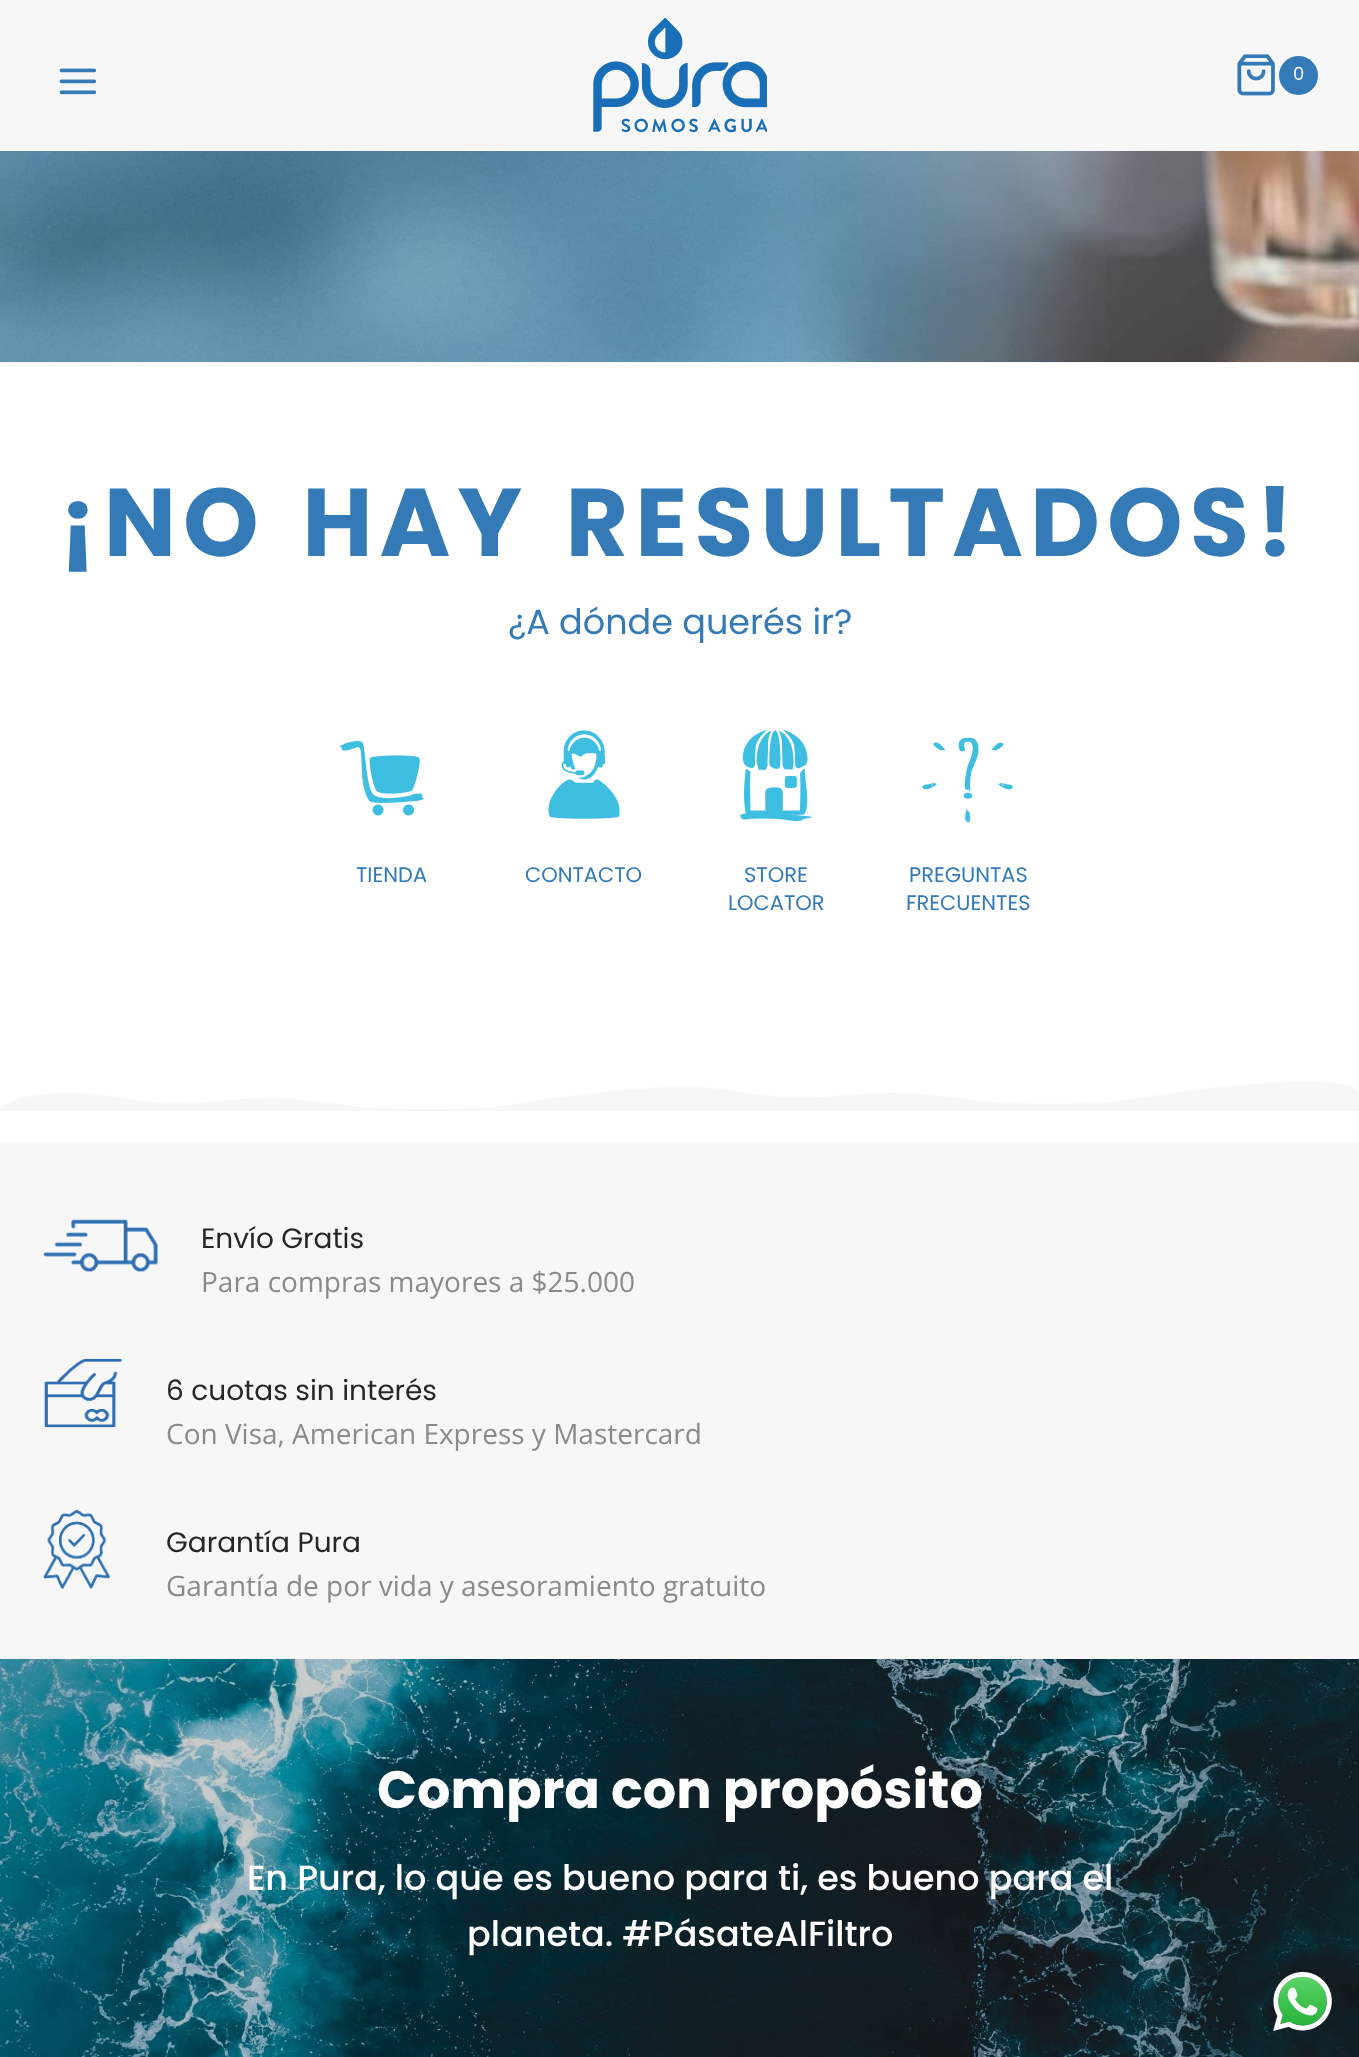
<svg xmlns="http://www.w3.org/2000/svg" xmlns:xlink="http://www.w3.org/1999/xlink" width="1359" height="2057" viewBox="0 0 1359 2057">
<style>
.cls-1{font:18px Poppins;fill:#ffffff}
.cls-2{font:bold 96.25px Poppins;letter-spacing:7px;fill:#337ab7}
.cls-3{font:35px Poppins;fill:#337ab7}
.cls-4{font:21px Poppins;fill:#337ab7}
.cls-5{font:28px Poppins;fill:#262626}
.cls-6{font:28px Open Sans;fill:#8a8a8a}
.cls-7{font:bold 52.5px Poppins;fill:#ffffff}
.cls-8{font:500 35px Poppins;fill:#ffffff}
</style>
<rect width="100%" height="100%" fill="#ffffff"/>
<rect fill="#f7f7f7" x="0" y="0" width="1359" height="151"/>
<image xlink:href="image0.png" x="59" y="68" width="38" height="27"/>
<image xlink:href="image1.png" x="593" y="18" width="174" height="115"/>
<image xlink:href="image2.png" x="1237" y="54" width="38" height="42"/>
<circle fill="#337ab7" cx="1298.5" cy="75.5" r="19.5"/>
<image xlink:href="image3.png" x="0" y="151" width="1359" height="212"/>
<image xlink:href="image4.png" x="339" y="741" width="85" height="75"/>
<image xlink:href="image5.png" x="548" y="730" width="72" height="89"/>
<image xlink:href="image6.png" x="740" y="729" width="72" height="93"/>
<image xlink:href="image7.png" x="922" y="737" width="91" height="86"/>
<image xlink:href="image8.png" x="0" y="1082" width="1359" height="29"/>
<rect fill="#f7f7f7" x="0" y="1143" width="1359" height="516"/>
<image xlink:href="image9.png" x="43" y="1219" width="115" height="54"/>
<image xlink:href="image10.png" x="43" y="1358" width="80" height="70"/>
<image xlink:href="image11.png" x="43" y="1510" width="68" height="79"/>
<image xlink:href="image12.png" x="0" y="1659" width="1359" height="398"/>
<image xlink:href="image13.png" x="1273" y="1972" width="59" height="59"/>
<text class="cls-1" x="1293" y="80">0</text>
<text class="cls-2" x="59" y="556" word-spacing="9">¡NO HAY RESULTADOS!</text>
<text class="cls-3" x="508" y="634">¿A dónde querés ir?</text>
<text class="cls-4" x="356" y="882">TIENDA</text>
<text class="cls-4" x="525" y="882">CONTACTO</text>
<text class="cls-4" x="744" y="882">STORE</text>
<text class="cls-4" x="728" y="910">LOCATOR</text>
<text class="cls-4" x="909" y="882">PREGUNTAS</text>
<text class="cls-4" x="906" y="910">FRECUENTES</text>
<text class="cls-5" x="201" y="1248">Envío Gratis</text>
<text class="cls-6" x="201" y="1292">Para compras mayores a $25.000</text>
<text class="cls-5" x="166" y="1400">6 cuotas sin interés</text>
<text class="cls-6" x="166" y="1444">Con Visa, American Express y Mastercard</text>
<text class="cls-5" x="166" y="1552">Garantía Pura</text>
<text class="cls-6" x="166" y="1596">Garantía de por vida y asesoramiento gratuito</text>
<text class="cls-7" x="377" y="1808">Compra con propósito</text>
<text class="cls-8" x="247" y="1890">En Pura, lo que es bueno para ti, es bueno para el</text>
<text class="cls-8" x="467" y="1946">planeta. #PásateAlFiltro</text>
</svg>
